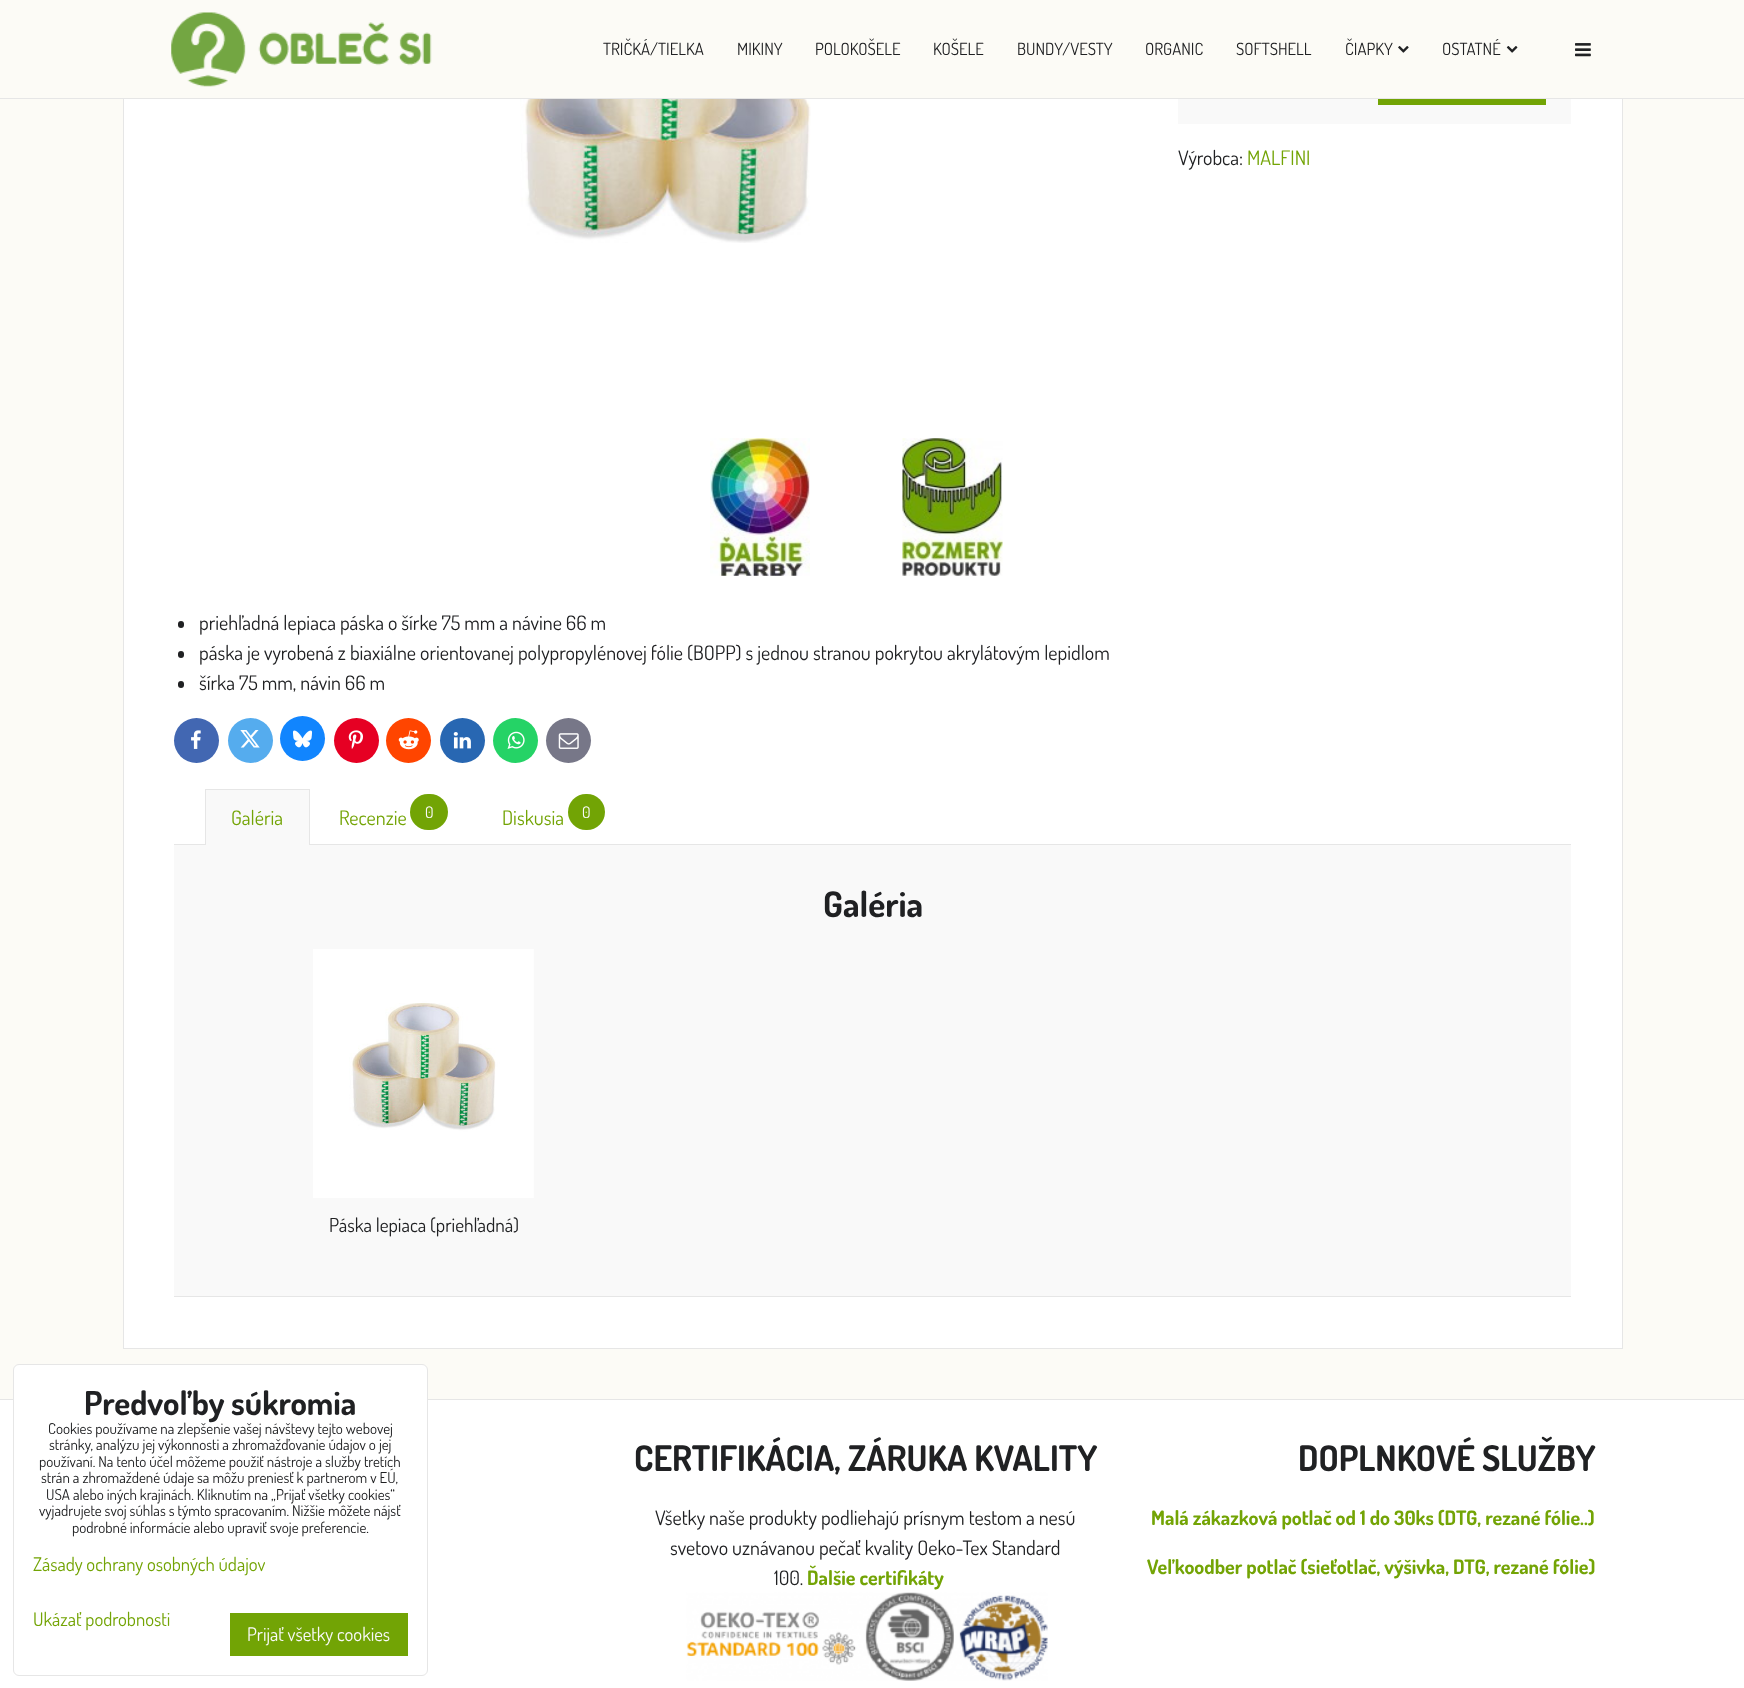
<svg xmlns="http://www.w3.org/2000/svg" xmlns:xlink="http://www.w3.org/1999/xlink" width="1744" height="1688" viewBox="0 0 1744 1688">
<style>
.cls-1{font:16.75px Dosis;fill:#202123}
.cls-2{font:20px Dosis;fill:#202123}
.cls-3{font:20px Dosis;fill:#73a405}
.cls-4{font:16px Dosis;fill:#f9f9f9}
.cls-5{font:bold 35.25px Dosis;fill:#202123}
.cls-6{font:19.25px Dosis;fill:#202123}
.cls-7{font:bold 20px Dosis;fill:#73a405}
.cls-8{font:bold 33px Dosis;fill:#202123}
.cls-9{font:15px Dosis;fill:#202123}
.cls-10{font:18.75px Dosis;fill:#73a405}
.cls-11{font:18.75px Dosis;fill:#f9f9f9}
</style>
<rect width="100%" height="100%" fill="#fcfbf6"/>
<rect fill="#ffffff" x="124" y="99" width="1498" height="1249"/>
<rect fill="none" stroke="#e6e6e6" x="123.5" y="-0.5" width="1499" height="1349"/>
<rect fill="#fcfbf6" x="123" y="0" width="1500" height="98"/>
<rect fill="#e6e6e6" x="0" y="98" width="1744" height="1"/>
<image xlink:href="image0.png" x="171" y="12" width="261" height="75"/>
<image xlink:href="image1.png" x="1398" y="46" width="11" height="7"/>
<image xlink:href="image2.png" x="1506" y="46" width="12" height="7"/>
<image xlink:href="image3.png" x="1575" y="43" width="16" height="14"/>
<image xlink:href="image4.png" x="520" y="99" width="291" height="144"/>
<rect fill="#f9f9f9" x="1178" y="99" width="393" height="25"/>
<rect fill="#72a405" x="1378" y="99" width="168" height="6"/>
<image xlink:href="image5.png" x="710" y="438" width="100" height="138"/>
<image xlink:href="image6.png" x="902" y="438" width="101" height="138"/>
<rect fill="#202123" x="178" y="621" width="6" height="7" rx="3"/>
<rect fill="#202123" x="178" y="651" width="6" height="7" rx="3"/>
<rect fill="#202123" x="178" y="681" width="6" height="7" rx="3"/>
<circle fill="#4267b2" cx="196.5" cy="740.5" r="22.5"/>
<image xlink:href="image7.png" x="191" y="730" width="10" height="19"/>
<circle fill="#55acee" cx="250.5" cy="740.5" r="22.5"/>
<image xlink:href="image8.png" x="240" y="730" width="20" height="18"/>
<circle fill="#1185fe" cx="302.5" cy="738.5" r="22.5"/>
<image xlink:href="image9.png" x="293" y="730" width="20" height="18"/>
<circle fill="#e60023" cx="356.5" cy="740.5" r="22.5"/>
<image xlink:href="image10.png" x="348" y="730" width="15" height="19"/>
<circle fill="#ff4500" cx="408.5" cy="740.5" r="22.5"/>
<image xlink:href="image11.png" x="398" y="730" width="21" height="20"/>
<circle fill="#2867b2" cx="462.5" cy="740.5" r="22.5"/>
<image xlink:href="image12.png" x="453" y="732" width="18" height="17"/>
<circle fill="#25d366" cx="515.5" cy="740.5" r="22.5"/>
<image xlink:href="image13.png" x="507" y="731" width="18" height="18"/>
<circle fill="#777788" cx="568.5" cy="740.5" r="22.5"/>
<image xlink:href="image14.png" x="558" y="733" width="21" height="16"/>
<rect fill="#e6e6e6" x="174" y="844" width="1397" height="1"/>
<rect fill="#f9f9f9" x="206" y="790" width="103" height="55"/>
<rect fill="#e6e6e6" x="205" y="789" width="105" height="1"/>
<rect fill="#e6e6e6" x="309" y="789" width="1" height="56"/>
<rect fill="#e6e6e6" x="205" y="789" width="1" height="56"/>
<rect fill="#72a405" x="410" y="794" width="38" height="36" rx="18"/>
<rect fill="#72a405" x="568" y="794" width="37" height="36" rx="18"/>
<rect fill="#f9f9f9" x="174" y="845" width="1397" height="451"/>
<rect fill="#e6e6e6" x="174" y="1296" width="1397" height="1"/>
<image xlink:href="image15.png" x="313" y="949" width="221" height="249"/>
<rect fill="#ffffff" x="0" y="1400" width="1744" height="288"/>
<rect fill="#e6e6e6" x="0" y="1399" width="1744" height="1"/>
<image xlink:href="image16.png" x="686" y="1592" width="362" height="89"/>
<rect fill="#ffffff" stroke="#e6e6e6" x="13.5" y="1364.5" width="414" height="311" rx="5.5"/>
<rect fill="#72a405" x="230" y="1613" width="178" height="43"/>
<text class="cls-1" x="603" y="55">TRIČKÁ/TIELKA</text>
<text class="cls-1" x="737" y="55">MIKINY</text>
<text class="cls-1" x="815" y="55">POLOKOŠELE</text>
<text class="cls-1" x="933" y="55">KOŠELE</text>
<text class="cls-1" x="1017" y="55">BUNDY/VESTY</text>
<text class="cls-1" x="1145" y="55">ORGANIC</text>
<text class="cls-1" x="1236" y="55">SOFTSHELL</text>
<text class="cls-1" x="1345" y="55">ČIAPKY</text>
<text class="cls-1" x="1442" y="55">OSTATNÉ</text>
<text class="cls-2" x="1178" y="165">Výrobca:</text>
<text class="cls-3" x="1247" y="165">MALFINI</text>
<text class="cls-2"><tspan x="199" y="630">priehľadná lepiaca páska o šírke 75 mm a návine 66 m</tspan><tspan x="199" y="660">páska je vyrobená z biaxiálne orientovanej polypropylénovej fólie (BOPP) s jednou stranou pokrytou akrylátovým lepidlom</tspan><tspan x="199" y="690">šírka 75 mm, návin 66 m</tspan></text>
<text class="cls-3" x="231" y="825">Galéria</text>
<text class="cls-3" x="339" y="825">Recenzie</text>
<text class="cls-4" x="425" y="818">0</text>
<text class="cls-3" x="502" y="825">Diskusia</text>
<text class="cls-4" x="582" y="818">0</text>
<text class="cls-5" x="823" y="917">Galéria</text>
<text class="cls-6" x="329" y="1232">Páska lepiaca (priehľadná)</text>
<text class="cls-5" x="634" y="1471">CERTIFIKÁCIA, ZÁRUKA KVALITY</text>
<text class="cls-2" x="655" y="1525">Všetky naše produkty podliehajú prísnym testom a nesú</text>
<text class="cls-2" x="670" y="1555">svetovo uznávanou pečať kvality Oeko-Tex Standard</text>
<text class="cls-2" x="774" y="1585">100.</text>
<text class="cls-7" x="807" y="1585">Ďalšie certifikáty</text>
<text class="cls-5" x="1298" y="1471">DOPLNKOVÉ SLUŽBY</text>
<text class="cls-7" x="1151" y="1525">Malá zákazková potlač od 1 do 30ks (DTG, rezané fólie..)</text>
<text class="cls-7" x="1147" y="1574">Veľkoodber potlač (sieťotlač, výšivka, DTG, rezané fólie)</text>
<text class="cls-8" x="84" y="1415">Predvoľby súkromia</text>
<text class="cls-9" x="48" y="1434">Cookies používame na zlepšenie vašej návštevy tejto webovej</text>
<text class="cls-9" x="49" y="1450">stránky, analýzu jej výkonnosti a zhromažďovanie údajov o jej</text>
<text class="cls-9" x="39" y="1467">používaní. Na tento účel môžeme použiť nástroje a služby tretích</text>
<text class="cls-9" x="41" y="1483">strán a zhromaždené údaje sa môžu preniesť k partnerom v EÚ,</text>
<text class="cls-9" x="46" y="1500">USA alebo iných krajinách. Kliknutím na „Prijať všetky cookies“</text>
<text class="cls-9" x="39" y="1516">vyjadrujete svoj súhlas s týmto spracovaním. Nižšie môžete nájsť</text>
<text class="cls-9" x="72" y="1533">podrobné informácie alebo upraviť svoje preferencie.</text>
<text class="cls-10" x="33" y="1571">Zásady ochrany osobných údajov</text>
<text class="cls-10" x="33" y="1626">Ukázať podrobnosti</text>
<text class="cls-11" x="247" y="1641">Prijať všetky cookies</text>
</svg>
